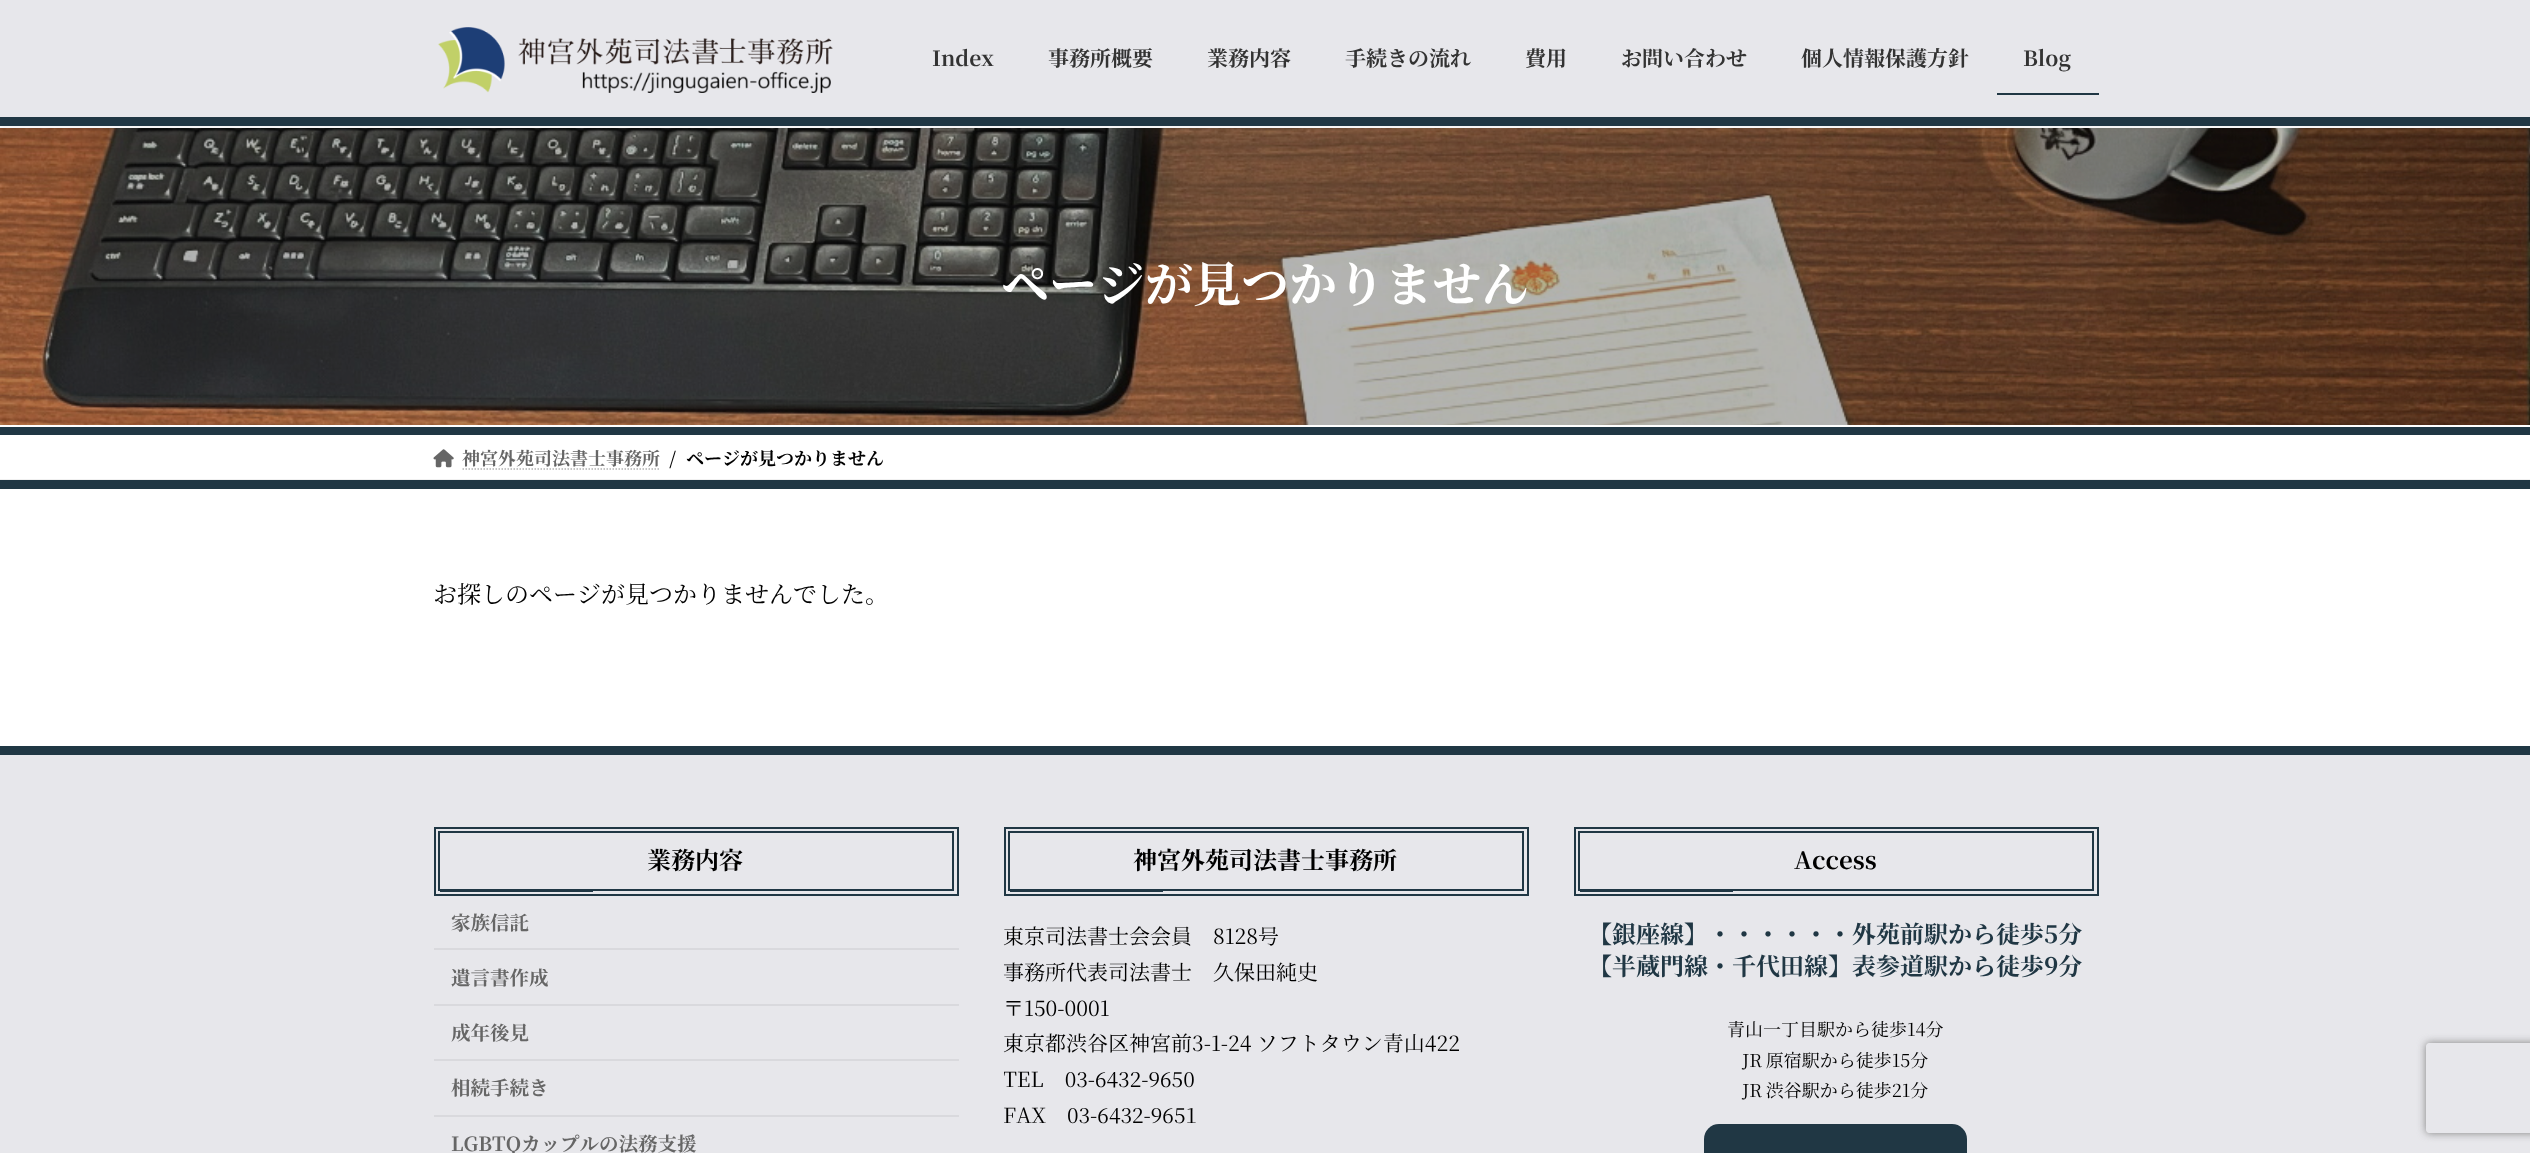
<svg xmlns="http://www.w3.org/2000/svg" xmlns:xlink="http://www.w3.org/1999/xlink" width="2530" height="1153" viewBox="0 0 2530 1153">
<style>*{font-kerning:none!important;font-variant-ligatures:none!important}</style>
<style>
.cls-1{font:bold 21px Noto Serif JP;fill:#333333}
.cls-2{font:bold 48px Noto Serif JP;fill:#ffffff}
.cls-3{font:bold 18px Noto Serif JP;fill:#666666}
.cls-4{font:bold 18px Noto Serif JP;fill:#000000}
.cls-5{font:24px Noto Serif JP;fill:#000000}
.cls-6{font:bold 24px Noto Serif JP;fill:#000000}
.cls-7{font:bold 19.5px Noto Serif JP;fill:#666666}
.cls-8{font:21px Noto Serif JP;fill:#000000}
.cls-9{font:bold 24px Noto Serif JP;fill:#203744}
.cls-10{font:18px Noto Serif JP;fill:#000000}
</style>
<defs>
<clipPath id="clip1"><path d="M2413 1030H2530V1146H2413ZM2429 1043H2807C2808.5 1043 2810 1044.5 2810 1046V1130C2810 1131.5 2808.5 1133 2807 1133H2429C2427.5 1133 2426 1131.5 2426 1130V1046C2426 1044.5 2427.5 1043 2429 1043Z" clip-rule="evenodd"/></clipPath>
<clipPath id="clip2"><rect x="1004" y="920" width="525" height="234"/></clipPath>
</defs>
<rect width="100%" height="100%" fill="#ffffff"/>
<image xlink:href="image1.png" x="0" y="128" width="2530" height="297"/>
<rect fill="#000000" fill-opacity="0.05" filter="blur(2px)" x="0" y="2" width="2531" height="126"/>
<rect fill="#e7e7eb" x="0" y="0" width="2530" height="117"/>
<rect fill="#203744" x="0" y="117" width="2530" height="9"/>
<image xlink:href="image0.png" x="438" y="27" width="395" height="66"/>
<rect fill="#203744" x="1997" y="93" width="102" height="2"/>
<rect fill="#203744" x="0" y="427" width="2530" height="8"/>
<rect fill="#f0f0f0" x="0" y="479" width="2530" height="1"/>
<image xlink:href="image2.png" x="433" y="449" width="21" height="19"/>
<path fill="none" stroke="#b3b3b3" stroke-width="1.5" stroke-dasharray="1.5 1.5" d="M462.5 469H660.5"/>
<rect fill="#203744" x="0" y="480" width="2530" height="9"/>
<rect fill="#e7e7eb" x="0" y="755" width="2530" height="398"/>
<rect fill="#203744" x="0" y="746" width="2530" height="9"/>
<rect fill="none" stroke="#203744" stroke-width="2" x="435" y="828" width="523" height="67"/>
<rect fill="none" stroke="#203744" stroke-width="2" x="439" y="832" width="514" height="58"/>
<rect fill="#203744" x="440" y="891" width="153" height="1"/>
<rect fill="#d9d9dd" x="434" y="948" width="525" height="2"/>
<rect fill="#d9d9dd" x="434" y="1004" width="525" height="2"/>
<rect fill="#d9d9dd" x="434" y="1059" width="525" height="2"/>
<rect fill="#d9d9dd" x="434" y="1115" width="525" height="2"/>
<rect fill="none" stroke="#203744" stroke-width="2" x="1005" y="828" width="523" height="67"/>
<rect fill="none" stroke="#203744" stroke-width="2" x="1009" y="832" width="514" height="58"/>
<rect fill="#203744" x="1010" y="891" width="153" height="1"/>
<rect fill="none" stroke="#203744" stroke-width="2" x="1575" y="828" width="523" height="67"/>
<rect fill="none" stroke="#203744" stroke-width="2" x="1579" y="832" width="514" height="58"/>
<rect fill="#203744" x="1580" y="891" width="153" height="1"/>
<rect fill="#203744" x="1704" y="1124" width="263" height="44" rx="15"/>
<g clip-path="url(#clip1)">
<rect fill="#808080" filter="blur(4px)" x="2426" y="1043" width="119" height="90" rx="3"/>
</g>
<text class="cls-1" x="932" y="66">Index</text>
<text class="cls-1" x="1048" y="66">事務所概要</text>
<text class="cls-1" x="1207" y="66">業務内容</text>
<text class="cls-1" x="1345" y="66">手続きの流れ</text>
<text class="cls-1" x="1525" y="66">費用</text>
<text class="cls-1" x="1621" y="66">お問い合わせ</text>
<text class="cls-1" x="1801" y="66">個人情報保護方針</text>
<text class="cls-1" x="2023" y="66">Blog</text>
<text class="cls-2" x="1001" y="302">ページが見つかりません</text>
<text class="cls-3" x="462" y="465">神宮外苑司法書士事務所</text>
<text class="cls-4" x="669" y="465">/</text>
<text class="cls-4" x="686" y="465">ページが見つかりません</text>
<text class="cls-5" x="433" y="603">お探しのページが見つかりませんでした。</text>
<text class="cls-6" x="647" y="869">業務内容</text>
<text class="cls-7" x="451" y="930">家族信託</text>
<text class="cls-7" x="451" y="985">遺言書作成</text>
<text class="cls-7" x="451" y="1040">成年後見</text>
<text class="cls-7" x="451" y="1095">相続手続き</text>
<text class="cls-7" x="451" y="1151">LGBTQカップルの法務支援</text>
<text class="cls-6" x="1133" y="869">神宮外苑司法書士事務所</text>
<text class="cls-8"><tspan x="1003" y="944">東京司法書士会会員　8128号</tspan><tspan x="1003" y="980">事務所代表司法書士　久保田純史</tspan><tspan x="1003" y="1016">〒150-0001</tspan><tspan x="1003" y="1051">東京都渋谷区神宮前3-1-24 ソフトタウン青山422</tspan></text>
<g clip-path="url(#clip2)">
<text class="cls-8" x="1003" y="1087">TEL　03-6432-9650</text>
</g>
<text class="cls-8" x="1003" y="1123">FAX　03-6432-9651</text>
<text class="cls-6" x="1794" y="869">Access</text>
<text class="cls-9" x="1588" y="943">【銀座線】</text>
<text class="cls-9" x="1708" y="943">・・・・・・外苑前駅から徒歩5分</text>
<text class="cls-9" x="1588" y="975">【半蔵門線・千代田線】表参道駅から徒歩9分</text>
<text class="cls-10" x="1727" y="1036">青山一丁目駅から徒歩14分</text>
<text class="cls-10"><tspan x="1742" y="1067" word-spacing="-1">JR 原宿駅から徒歩15分</tspan><tspan x="1742" y="1097" word-spacing="-1">JR 渋谷駅から徒歩21分</tspan></text>
</svg>
